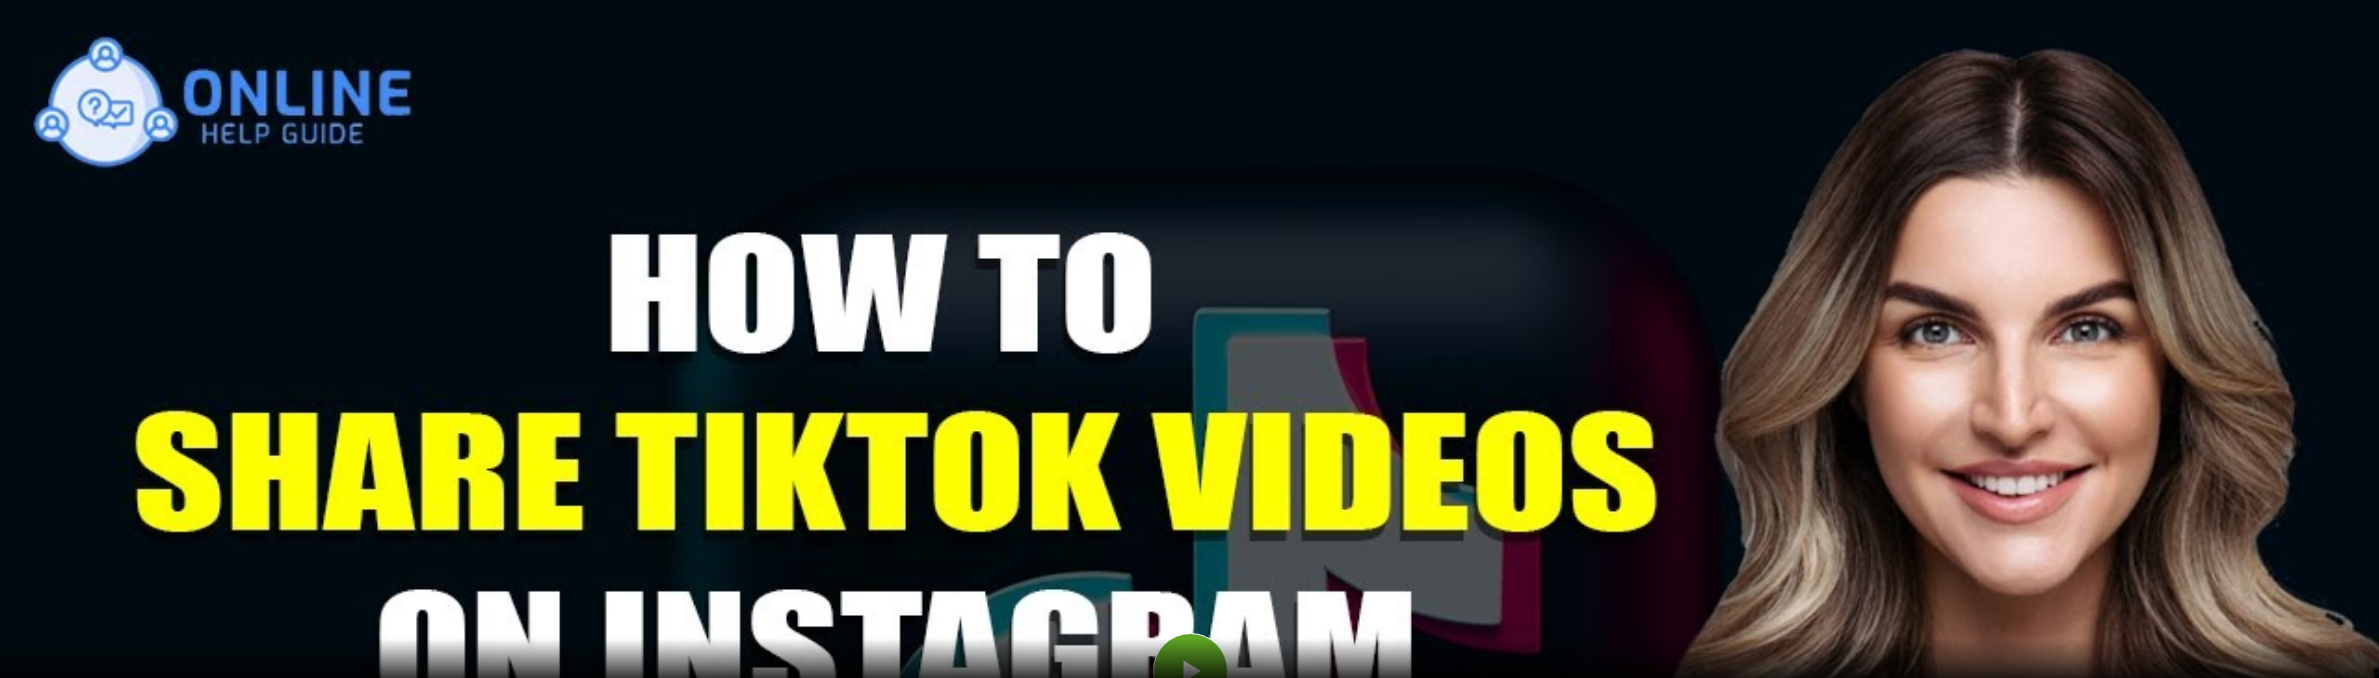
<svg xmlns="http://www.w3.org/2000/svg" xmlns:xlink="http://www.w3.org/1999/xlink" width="2379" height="678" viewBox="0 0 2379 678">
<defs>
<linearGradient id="g1" gradientUnits="userSpaceOnUse" x1="1190" y1="0" x2="1190" y2="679"><stop offset="0" stop-color="#000000" stop-opacity="0"/><stop offset="0.94" stop-color="#000000" stop-opacity="0"/><stop offset="1" stop-color="#000000" stop-opacity="0.8"/></linearGradient>
</defs>
<rect width="100%" height="100%" fill="#ffffff"/>
<image xlink:href="image0.png" x="0" y="0" width="2379" height="678"/>
<circle fill="#5fa624" stroke="#ffffff" cx="1190.5" cy="670.5" r="37"/>
<path fill="#ffffff" d="M1183.5 660.5V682L1201 671Z"/>
<rect fill="url(#g1)" x="0" y="639" width="2379" height="39"/>
</svg>
